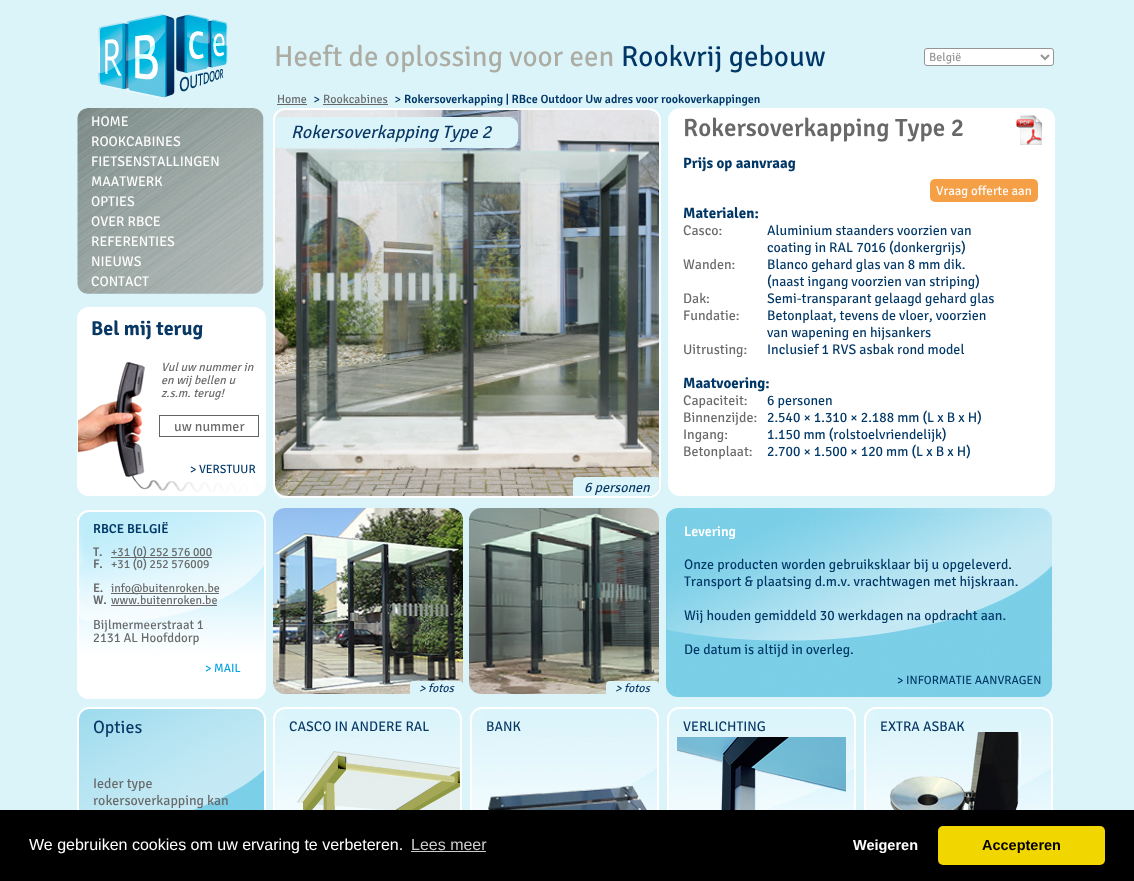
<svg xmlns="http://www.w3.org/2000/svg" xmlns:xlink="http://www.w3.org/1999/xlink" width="1134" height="881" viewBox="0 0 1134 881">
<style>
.cls-1{font:29px Signika Negative;fill:#acaca3}
.cls-2{font:29px Signika Negative;fill:#003766}
.cls-3{font:12px Signika Negative;fill:#959595}
.cls-4{font:12px Signika Negative;fill:#686868}
.cls-5{font:600 12px Signika Negative;fill:#003766}
.cls-6{font:14px Signika Negative;fill:#ffffff}
.cls-7{font:bold 20px Signika Negative;fill:#093865}
.cls-8{font:italic 12px Signika Negative;fill:#686868}
.cls-9{font:14px Signika Negative;fill:#686868}
.cls-10{font:12px Signika Negative;fill:#003766}
.cls-11{font:600 13px Signika Negative;fill:#003766}
.cls-12{font:bold 12px 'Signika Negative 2';fill:#686868}
.cls-13{font:13px Signika Negative;fill:#686868}
.cls-14{font:12px Signika Negative;fill:#00a2e1}
.cls-15{font:18px Signika Negative;fill:#093865}
.cls-16{font:italic 18px Signika Negative;fill:#093865}
.cls-17{font:italic 14px Signika Negative;fill:#093865}
.cls-18{font:600 25px Signika Negative;fill:#686868}
.cls-19{font:bold 15px Signika Negative;fill:#003766}
.cls-20{font:13px Signika Negative;fill:#ffffff}
.cls-21{font:14px Signika Negative;fill:#003766}
.cls-22{font:600 14px Signika Negative;fill:#ffffff}
.cls-23{font:italic 12px Signika Negative;fill:#093865}
.cls-24{font:14px Signika Negative;fill:#093865}
.cls-25{font:16px Liberation Sans;fill:#ffffff}
.cls-26{font:16px Liberation Sans;fill:#cccccc}
.cls-27{font:bold 14.5px Liberation Sans;fill:#ffffff}
.cls-28{font:bold 14.5px Liberation Sans;fill:#000000}
</style>
<defs>
<clipPath id="clip1"><rect x="275" y="110" width="384" height="386" rx="10"/></clipPath>
</defs>
<rect width="100%" height="100%" fill="#daf4fa"/>
<image xlink:href="image0.png" x="98" y="14" width="130" height="85"/>
<rect fill="#ffffff" stroke="#949494" x="924.5" y="48.5" width="129" height="17" rx="2.5"/>
<path fill="none" stroke="#959595" stroke-width="2" d="M1041 55L1045 59L1049 55"/>
<rect fill="#686868" x="277" y="104" width="30" height="1"/>
<image xlink:href="image1.png" x="314" y="96" width="6" height="7"/>
<rect fill="#686868" x="323" y="104" width="65" height="1"/>
<image xlink:href="image1.png" x="395" y="96" width="6" height="7"/>
<image xlink:href="image2.png" x="77" y="108" width="187" height="186"/>
<rect fill="#ffffff" x="77" y="307" width="189" height="189" rx="12"/>
<image xlink:href="image3.png" x="78" y="362" width="187" height="134"/>
<rect fill="none" stroke="#636363" x="159.5" y="415.5" width="99" height="21"/>
<rect fill="#ffffff" x="77" y="510" width="189" height="189" rx="12"/>
<image xlink:href="image4.png" x="79" y="512" width="187" height="186"/>
<rect fill="none" stroke="#ffffff" stroke-width="2" x="78" y="511" width="187" height="187" rx="11"/>
<rect fill="#686868" x="111" y="557" width="101" height="1"/>
<rect fill="#686868" x="111" y="593" width="108" height="1"/>
<rect fill="#686868" x="111" y="605" width="106" height="1"/>
<image xlink:href="image5.png" x="77" y="709" width="189" height="101"/>
<rect fill="none" stroke="#ffffff" stroke-width="2" x="78" y="708" width="187" height="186" rx="11"/>
<rect fill="none" stroke="#ffffff" stroke-width="2" x="274" y="109" width="386" height="388" rx="11"/>
<image xlink:href="image6.png" x="275" y="110" width="384" height="386"/>
<path fill="#daf4fa" d="M275 117H509C514 117 518 121 518 126V139C518 144 514 148 509 148H275Z"/>
<g clip-path="url(#clip1)">
<rect fill="#daf4fa" x="573" y="477" width="88" height="21" rx="4"/>
</g>
<rect fill="#ffffff" x="668" y="108" width="387" height="388" rx="12"/>
<image xlink:href="image7.png" x="1016" y="115" width="27" height="30"/>
<rect fill="#f59f46" x="930" y="179" width="108" height="23" rx="5"/>
<image xlink:href="image8.png" x="666" y="508" width="386" height="189"/>
<image xlink:href="image9.png" x="273" y="508" width="190" height="186"/>
<rect fill="#daf4fa" x="410" y="681" width="53" height="15" rx="4"/>
<image xlink:href="image10.png" x="469" y="508" width="190" height="186"/>
<rect fill="#daf4fa" x="606" y="681" width="53" height="15" rx="4"/>
<image xlink:href="image11.png" x="275" y="709" width="185" height="101"/>
<rect fill="none" stroke="#ffffff" stroke-width="2" x="274" y="708" width="187" height="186" rx="11"/>
<image xlink:href="image12.png" x="297" y="751" width="163" height="59"/>
<image xlink:href="image11.png" x="472" y="709" width="185" height="101"/>
<rect fill="none" stroke="#ffffff" stroke-width="2" x="471" y="708" width="187" height="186" rx="11"/>
<image xlink:href="image13.png" x="486" y="785" width="161" height="25"/>
<image xlink:href="image11.png" x="669" y="709" width="185" height="101"/>
<rect fill="none" stroke="#ffffff" stroke-width="2" x="668" y="708" width="187" height="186" rx="11"/>
<image xlink:href="image14.png" x="677" y="737" width="169" height="73"/>
<image xlink:href="image11.png" x="866" y="709" width="185" height="101"/>
<rect fill="none" stroke="#ffffff" stroke-width="2" x="865" y="708" width="187" height="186" rx="11"/>
<image xlink:href="image15.png" x="890" y="732" width="131" height="78"/>
<rect fill="#000000" x="0" y="810" width="1134" height="71"/>
<rect fill="#cccccc" x="411" y="851" width="75" height="1"/>
<rect fill="#f1d600" x="938" y="826" width="167" height="39" rx="5"/>
<text class="cls-1" x="274" y="66">Heeft de oplossing voor een</text>
<text class="cls-2" x="621" y="66">Rookvrij gebouw</text>
<text class="cls-3" x="929" y="61">België</text>
<text class="cls-4" x="277" y="103">Home</text>
<text class="cls-4" x="323" y="103">Rookcabines</text>
<text class="cls-5" x="404" y="103">Rokersoverkapping | RBce Outdoor Uw adres voor rookoverkappingen</text>
<text class="cls-6"><tspan x="91" y="126">HOME</tspan><tspan x="91" y="146">ROOKCABINES</tspan><tspan x="91" y="166">FIETSENSTALLINGEN</tspan><tspan x="91" y="186">MAATWERK</tspan><tspan x="91" y="206">OPTIES</tspan><tspan x="91" y="226">OVER RBCE</tspan><tspan x="91" y="246">REFERENTIES</tspan><tspan x="91" y="266">NIEUWS</tspan><tspan x="91" y="286">CONTACT</tspan></text>
<text class="cls-7" x="91" y="335">Bel mij terug</text>
<text class="cls-8"><tspan x="161" y="371">Vul uw nummer in</tspan><tspan x="161" y="384">en wij bellen u</tspan><tspan x="161" y="397">z.s.m. terug!</tspan></text>
<text class="cls-9" x="174" y="431">uw nummer</text>
<text class="cls-10" x="190" y="473">&gt; VERSTUUR</text>
<text class="cls-11" x="93" y="533">RBCE BELGIË</text>
<text class="cls-12" x="93" y="556">T.</text>
<text class="cls-4" x="111" y="556">+31 (0) 252 576 000</text>
<text class="cls-12" x="93" y="568">F.</text>
<text class="cls-4" x="111" y="568">+31 (0) 252 576009</text>
<text class="cls-12" x="93" y="592">E.</text>
<text class="cls-4" x="111" y="592">info@buitenroken.be</text>
<text class="cls-12" x="93" y="604">W.</text>
<text class="cls-4" x="111" y="604">www.buitenroken.be</text>
<text class="cls-13"><tspan x="93" y="629">Bijlmermeerstraat 1</tspan><tspan x="93" y="642">2131 AL Hoofddorp</tspan></text>
<text class="cls-14" x="205" y="672">&gt; MAIL</text>
<text class="cls-15" x="93" y="733">Opties</text>
<text class="cls-9"><tspan x="93" y="788">Ieder type</tspan><tspan x="93" y="805">rokersoverkapping kan</tspan></text>
<text class="cls-16" x="291" y="138">Rokersoverkapping Type 2</text>
<text class="cls-17" x="584" y="492">6 personen</text>
<text class="cls-18" x="683" y="136">Rokersoverkapping Type 2</text>
<text class="cls-19" x="683" y="168">Prijs op aanvraag</text>
<text class="cls-20" x="936" y="195">Vraag offerte aan</text>
<text class="cls-19" x="683" y="218">Materialen:</text>
<text class="cls-9" x="683" y="235">Casco:</text>
<text class="cls-21"><tspan x="767" y="235">Aluminium staanders voorzien van</tspan><tspan x="767" y="252">coating in RAL 7016 (donkergrijs)</tspan></text>
<text class="cls-9" x="683" y="269">Wanden:</text>
<text class="cls-21"><tspan x="767" y="269">Blanco gehard glas van 8 mm dik.</tspan><tspan x="767" y="286">(naast ingang voorzien van striping)</tspan></text>
<text class="cls-9" x="683" y="303">Dak:</text>
<text class="cls-21" x="767" y="303">Semi-transparant gelaagd gehard glas</text>
<text class="cls-9" x="683" y="320">Fundatie:</text>
<text class="cls-21"><tspan x="767" y="320">Betonplaat, tevens de vloer, voorzien</tspan><tspan x="767" y="337">van wapening en hijsankers</tspan></text>
<text class="cls-9" x="683" y="354">Uitrusting:</text>
<text class="cls-21" x="767" y="354">Inclusief 1 RVS asbak rond model</text>
<text class="cls-19" x="683" y="388">Maatvoering:</text>
<text class="cls-9" x="683" y="405">Capaciteit:</text>
<text class="cls-21" x="767" y="405">6 personen</text>
<text class="cls-9" x="683" y="422">Binnenzijde:</text>
<text class="cls-21" x="767" y="422">2.540 × 1.310 × 2.188 mm (L x B x H)</text>
<text class="cls-9" x="683" y="439">Ingang:</text>
<text class="cls-21" x="767" y="439">1.150 mm (rolstoelvriendelijk)</text>
<text class="cls-9" x="683" y="456">Betonplaat:</text>
<text class="cls-21" x="767" y="456">2.700 × 1.500 × 120 mm (L x B x H)</text>
<text class="cls-22" x="684" y="536">Levering</text>
<text class="cls-21"><tspan x="684" y="569">Onze producten worden gebruiksklaar bij u opgeleverd.</tspan><tspan x="684" y="586">Transport &amp; plaatsing d.m.v. vrachtwagen met hijskraan.</tspan></text>
<text class="cls-21" x="684" y="620">Wij houden gemiddeld 30 werkdagen na opdracht aan.</text>
<text class="cls-21" x="684" y="654">De datum is altijd in overleg.</text>
<text class="cls-10" x="897" y="684">&gt; INFORMATIE AANVRAGEN</text>
<text class="cls-23" x="419" y="692">&gt; fotos</text>
<text class="cls-23" x="615" y="692">&gt; fotos</text>
<text class="cls-24" x="289" y="731">CASCO IN ANDERE RAL</text>
<text class="cls-24" x="486" y="731">BANK</text>
<text class="cls-24" x="683" y="731">VERLICHTING</text>
<text class="cls-24" x="880" y="731">EXTRA ASBAK</text>
<text class="cls-25" x="29" y="850">We gebruiken cookies om uw ervaring te verbeteren.</text>
<text class="cls-26" x="411" y="850">Lees meer</text>
<text class="cls-27" x="853" y="850">Weigeren</text>
<text class="cls-28" x="982" y="850">Accepteren</text>
</svg>
